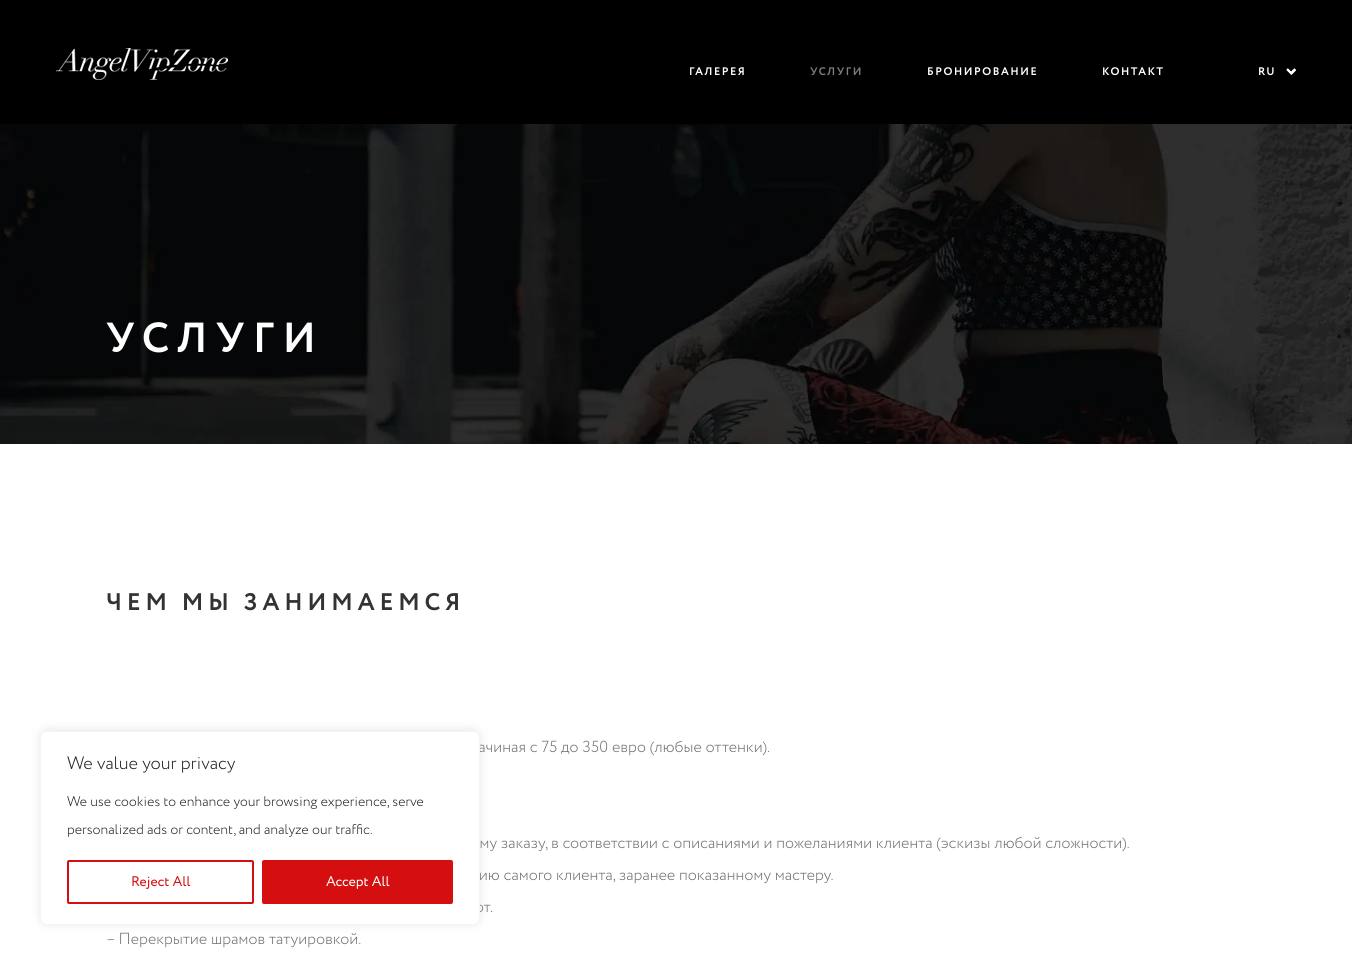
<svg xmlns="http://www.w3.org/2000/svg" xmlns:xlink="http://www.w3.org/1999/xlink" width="1352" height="965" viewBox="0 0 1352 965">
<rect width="100%" height="100%" fill="#ffffff"/>
<rect fill="#000000" x="0" y="0" width="1352" height="124"/>
<image xlink:href="image0.png" x="56" y="48" width="172" height="32"/>
<image xlink:href="image1.png" x="690" y="67" width="54" height="8"/>
<image xlink:href="image2.png" x="810" y="67" width="51" height="9"/>
<image xlink:href="image3.png" x="928" y="67" width="109" height="9"/>
<image xlink:href="image4.png" x="1103" y="67" width="60" height="9"/>
<image xlink:href="image5.png" x="1286" y="68" width="10" height="7"/>
<path fill="none" stroke="#ffffff" stroke-width="2" d="M1287.5 69.5L1291.5 73.5L1295.5 69.5"/>
<image xlink:href="image6.png" x="1259" y="67" width="15" height="9"/>
<image xlink:href="image7.png" x="0" y="124" width="1352" height="320"/>
<image xlink:href="image8.png" x="106" y="322" width="206" height="31"/>
<image xlink:href="image9.png" x="107" y="592" width="351" height="19"/>
<image xlink:href="image10.png" x="480" y="740" width="290" height="16"/>
<image xlink:href="image11.png" x="480" y="836" width="649" height="16"/>
<image xlink:href="image12.png" x="480" y="872" width="353" height="12"/>
<image xlink:href="image13.png" x="480" y="904" width="13" height="9"/>
<image xlink:href="image14.png" x="107" y="932" width="254" height="16"/>
<rect fill="#acabab" fill-opacity="0.3" filter="blur(5px)" x="40" y="730" width="440" height="194" rx="6"/>
<rect fill="#ffffff" stroke="#f4f4f4" x="40.5" y="731.5" width="439" height="193" rx="5.5"/>
<image xlink:href="image15.png" x="67" y="756" width="169" height="17"/>
<image xlink:href="image16.png" x="67" y="796" width="357" height="13"/>
<image xlink:href="image17.png" x="68" y="824" width="304" height="13"/>
<rect fill="none" stroke="#d50e0f" stroke-width="2" x="68" y="861" width="185" height="42" rx="1"/>
<image xlink:href="image18.png" x="132" y="876" width="59" height="13"/>
<rect fill="#d50e0f" stroke="#d50e0f" stroke-width="2" x="263" y="861" width="189" height="42" rx="1"/>
<image xlink:href="image19.png" x="326" y="876" width="64" height="13"/>
</svg>
